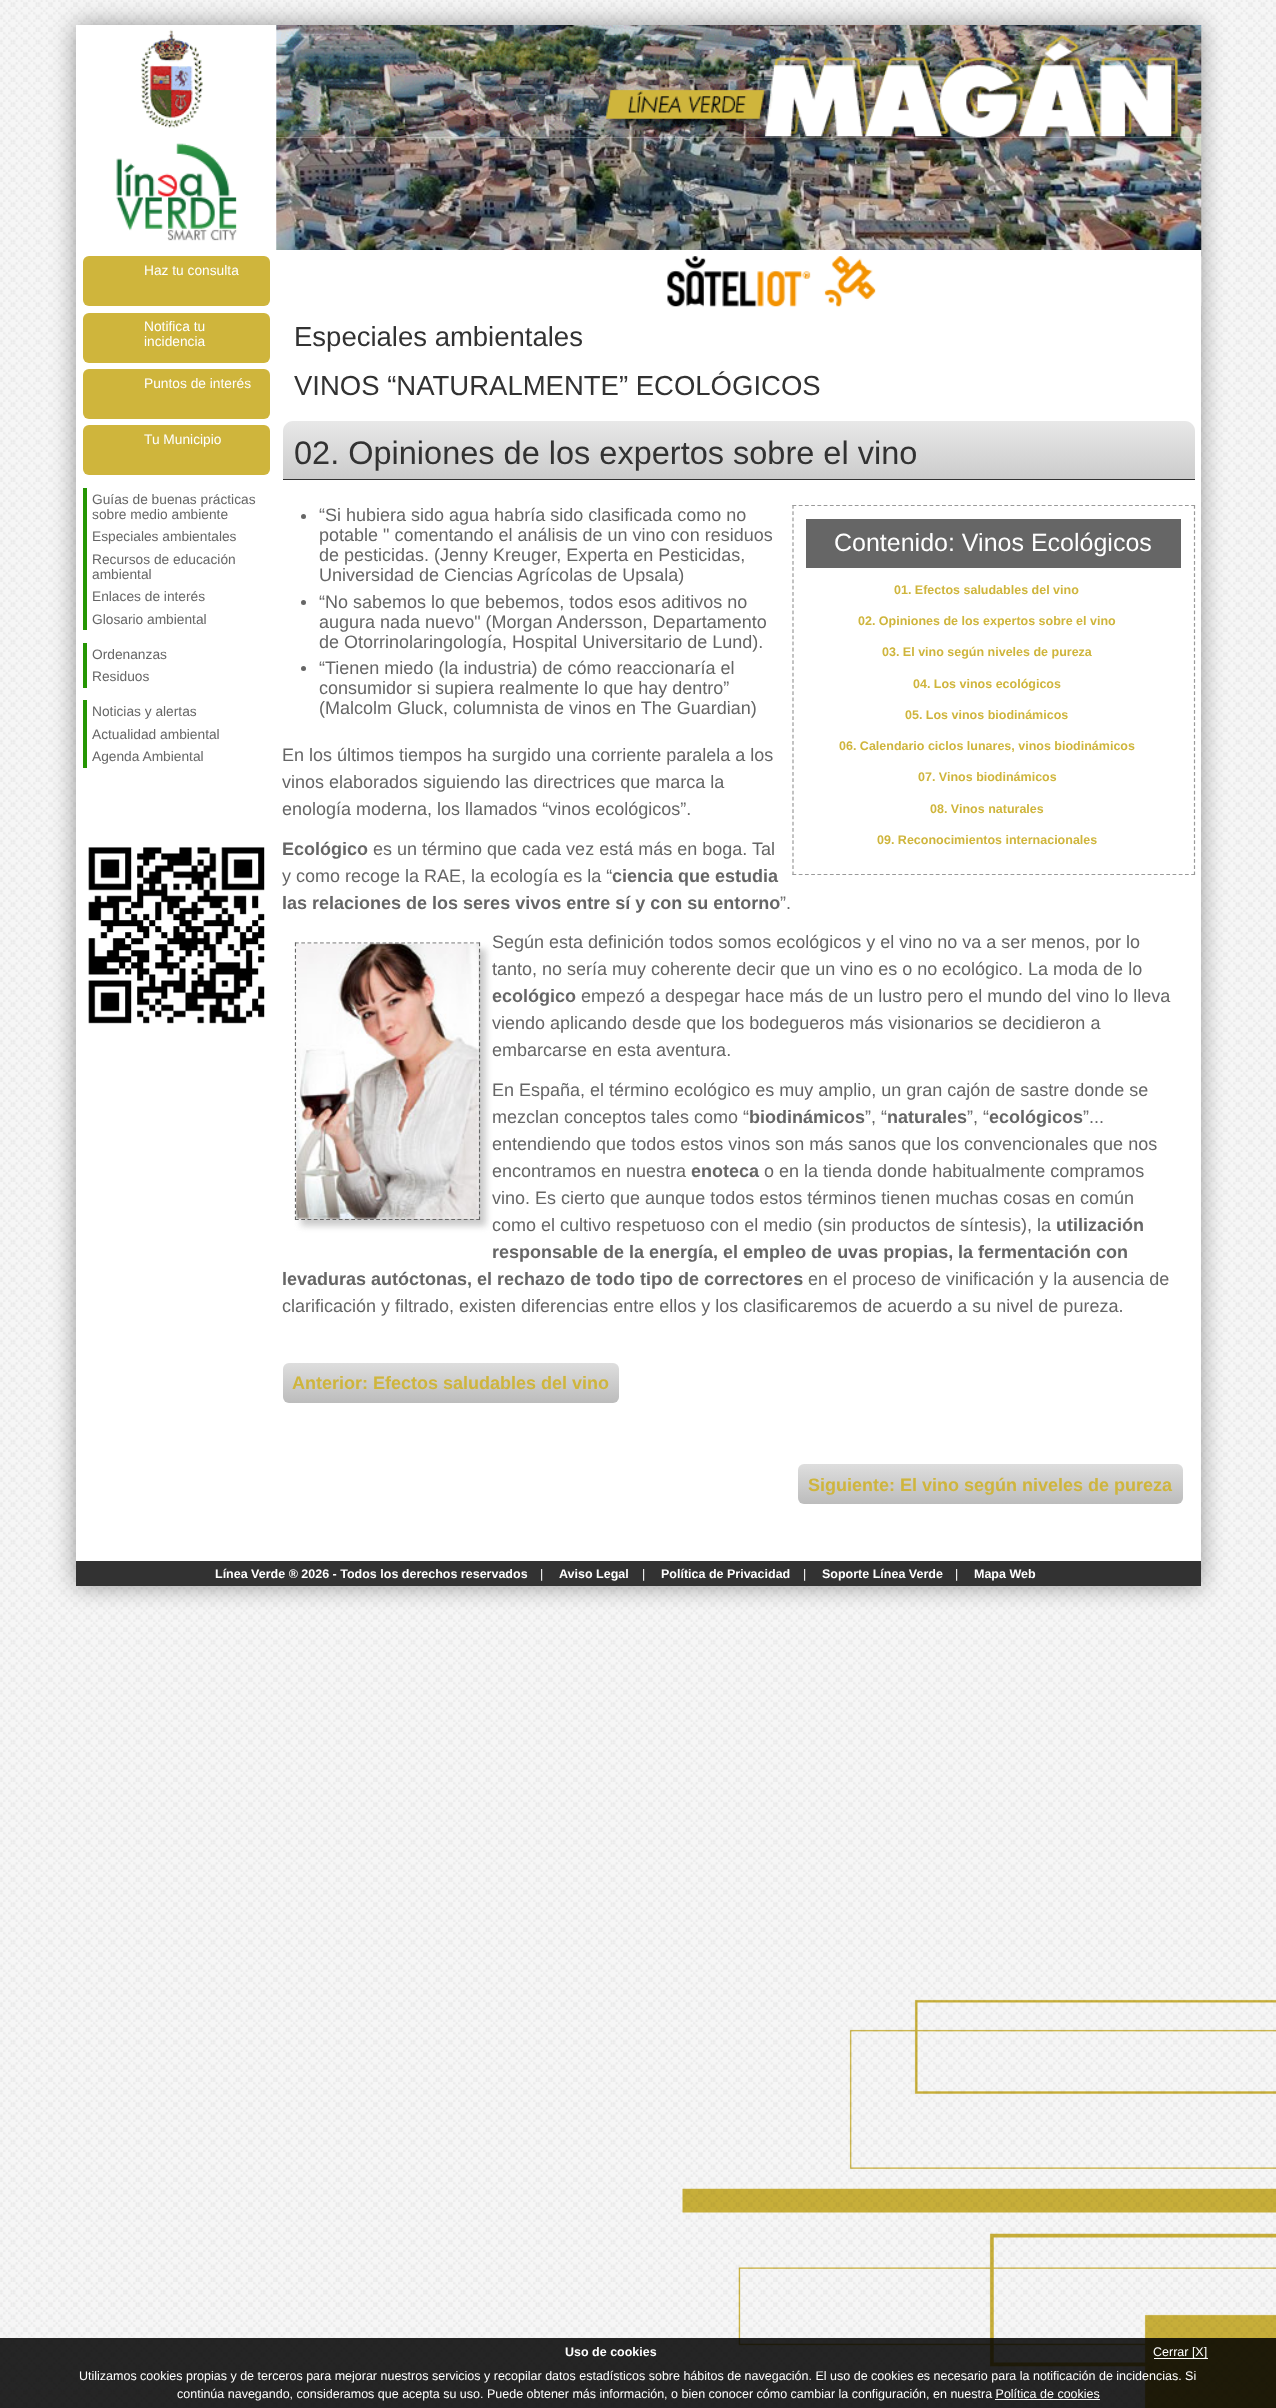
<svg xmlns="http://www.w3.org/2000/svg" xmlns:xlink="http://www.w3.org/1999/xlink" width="1276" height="2408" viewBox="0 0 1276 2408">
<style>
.cls-1{font:13.75px Liberation Sans;fill:#ffffff}
.cls-2{font:13.75px Liberation Sans;fill:#666666}
.cls-3{font:27.5px Liberation Sans;fill:#323232}
.cls-4{font:32.5px Liberation Sans;fill:#323232}
.cls-5{font:18px Liberation Sans;fill:#666666}
.cls-6{font:25px Liberation Sans;fill:#ffffff}
.cls-7{font:bold 12.5px Liberation Sans;fill:#cfb53c}
.cls-8{font:bold 18px Liberation Sans;fill:#666666}
.cls-9{font:bold 18px Liberation Sans;fill:#cfb53c}
.cls-10{font:bold 12.5px Liberation Sans;fill:#ffffff}
.cls-11{font:12.5px Liberation Sans;fill:#ffffff}
</style>
<defs>
<linearGradient id="g1" gradientUnits="userSpaceOnUse" x1="739" y1="421" x2="739" y2="479"><stop offset="0" stop-color="#e8e8e8"/><stop offset="1" stop-color="#cccccc"/></linearGradient>
<linearGradient id="g2" gradientUnits="userSpaceOnUse" x1="451" y1="1363" x2="451" y2="1403"><stop offset="0" stop-color="#dedede"/><stop offset="1" stop-color="#bcbcbc"/></linearGradient>
<linearGradient id="g3" gradientUnits="userSpaceOnUse" x1="990" y1="1464" x2="990" y2="1504"><stop offset="0" stop-color="#dedede"/><stop offset="1" stop-color="#bcbcbc"/></linearGradient>
</defs>
<rect width="100%" height="100%" fill="#ffffff"/>
<image xlink:href="image0.png" x="0" y="0" width="1276" height="2408"/>
<rect fill="#000000" fill-opacity="0.4" filter="blur(12.5px)" x="76" y="25" width="1125" height="1561"/>
<rect fill="#ffffff" x="76" y="25" width="1125" height="1536"/>
<image xlink:href="image1.png" x="141" y="25" width="1061" height="113"/>
<image xlink:href="image2.png" x="116" y="137" width="162" height="104"/>
<image xlink:href="image3.png" x="276" y="137" width="926" height="113"/>
<image xlink:href="image4.png" x="667" y="256" width="535" height="51"/>
<rect fill="#cfb53c" x="83" y="256" width="187" height="50" rx="6"/>
<rect fill="#cfb53c" x="83" y="313" width="187" height="50" rx="6"/>
<rect fill="#cfb53c" x="83" y="369" width="187" height="50" rx="6"/>
<rect fill="#cfb53c" x="83" y="425" width="187" height="50" rx="6"/>
<rect fill="#259603" x="83" y="488" width="4" height="142"/>
<rect fill="#259603" x="83" y="643" width="4" height="45"/>
<rect fill="#259603" x="83" y="700" width="4" height="68"/>
<image xlink:href="image5.png" x="88" y="847" width="177" height="177"/>
<path fill="url(#g1)" d="M293 421H1185C1190.5 421 1195 425.5 1195 431V479H283V431C283 425.5 287.5 421 293 421Z"/>
<rect fill="#333333" x="283" y="479" width="912" height="1"/>
<circle fill="#666666" cx="303.5" cy="516.5" r="2.5"/>
<circle fill="#666666" cx="303.5" cy="602.5" r="2.5"/>
<circle fill="#666666" cx="303.5" cy="668.5" r="2.5"/>
<path fill="none" stroke="#999999" stroke-width="1.2" stroke-dasharray="3.75 2.48" d="M792.5 505.5H1195"/>
<path fill="none" stroke="#999999" stroke-width="1.2" stroke-dasharray="3.75 2.46" d="M1194.5 505V875"/>
<path fill="none" stroke="#999999" stroke-width="1.2" stroke-dasharray="3.75 2.48" d="M792.5 874.5H1195"/>
<path fill="none" stroke="#999999" stroke-width="1.2" stroke-dasharray="3.75 2.46" d="M793 505V875"/>
<rect fill="#666666" x="806" y="519" width="375" height="49"/>
<rect fill="#cccccc" filter="blur(3px)" x="301" y="949" width="185" height="277"/>
<path fill="none" stroke="#666666" stroke-width="1.2" stroke-dasharray="3.75 2.5" d="M295 943H480"/>
<path fill="none" stroke="#666666" stroke-width="1.2" stroke-dasharray="3.75 2.48" d="M479.5 942.5V1220"/>
<path fill="none" stroke="#666666" stroke-width="1.2" stroke-dasharray="3.75 2.5" d="M295 1219.5H480"/>
<path fill="none" stroke="#666666" stroke-width="1.2" stroke-dasharray="3.75 2.48" d="M295.5 942.5V1220"/>
<image xlink:href="image6.png" x="296" y="943" width="183" height="276"/>
<rect fill="url(#g2)" x="283" y="1363" width="336" height="40" rx="6"/>
<rect fill="url(#g3)" x="798" y="1464" width="385" height="40" rx="6"/>
<rect fill="#323232" x="76" y="1561" width="1125" height="25"/>
<rect fill="#000000" fill-opacity="0.85" x="0" y="2338" width="1276" height="70"/>
<rect fill="#ffffff" x="1154" y="2358" width="54" height="1"/>
<rect fill="#ffffff" x="995" y="2399" width="105" height="1"/>
<text class="cls-1" x="144" y="275">Haz tu consulta</text>
<text class="cls-1"><tspan x="144" y="331">Notifica tu</tspan><tspan x="144" y="346">incidencia</tspan></text>
<text class="cls-1" x="144" y="388">Puntos de interés</text>
<text class="cls-1" x="144" y="444">Tu Municipio</text>
<text class="cls-2"><tspan x="92" y="504">Guías de buenas prácticas</tspan><tspan x="92" y="519">sobre medio ambiente</tspan><tspan x="92" y="541">Especiales ambientales</tspan><tspan x="92" y="564">Recursos de educación</tspan><tspan x="92" y="579">ambiental</tspan><tspan x="92" y="601">Enlaces de interés</tspan><tspan x="92" y="624">Glosario ambiental</tspan></text>
<text class="cls-2"><tspan x="92" y="659">Ordenanzas</tspan><tspan x="92" y="681">Residuos</tspan></text>
<text class="cls-2"><tspan x="92" y="716">Noticias y alertas</tspan><tspan x="92" y="739">Actualidad ambiental</tspan><tspan x="92" y="761">Agenda Ambiental</tspan></text>
<text class="cls-3"><tspan x="294" y="346">Especiales ambientales</tspan><tspan x="294" y="395">VINOS “NATURALMENTE” ECOLÓGICOS</tspan></text>
<text class="cls-4" x="294" y="464">02. Opiniones de los expertos sobre el vino</text>
<text class="cls-5"><tspan x="319" y="521">“Si hubiera sido agua habría sido clasificada como no</tspan><tspan x="319" y="541">potable " comentando el análisis de un vino con residuos</tspan><tspan x="319" y="561">de pesticidas. (Jenny Kreuger, Experta en Pesticidas,</tspan><tspan x="319" y="581">Universidad de Ciencias Agrícolas de Upsala)</tspan><tspan x="319" y="608">“No sabemos lo que bebemos, todos esos aditivos no</tspan><tspan x="319" y="628">augura nada nuevo" (Morgan Andersson, Departamento</tspan><tspan x="319" y="648">de Otorrinolaringología, Hospital Universitario de Lund).</tspan><tspan x="319" y="674">“Tienen miedo (la industria) de cómo reaccionaría el</tspan><tspan x="319" y="694">consumidor si supiera realmente lo que hay dentro”</tspan><tspan x="319" y="714">(Malcolm Gluck, columnista de vinos en The Guardian)</tspan></text>
<text class="cls-6" x="834" y="551">Contenido: Vinos Ecológicos</text>
<text class="cls-7" x="894" y="594">01. Efectos saludables del vino</text>
<text class="cls-7" x="858" y="625">02. Opiniones de los expertos sobre el vino</text>
<text class="cls-7" x="882" y="656">03. El vino según niveles de pureza</text>
<text class="cls-7" x="913" y="688">04. Los vinos ecológicos</text>
<text class="cls-7" x="905" y="719">05. Los vinos biodinámicos</text>
<text class="cls-7" x="839" y="750">06. Calendario ciclos lunares, vinos biodinámicos</text>
<text class="cls-7" x="918" y="781">07. Vinos biodinámicos</text>
<text class="cls-7" x="930" y="813">08. Vinos naturales</text>
<text class="cls-7" x="877" y="844">09. Reconocimientos internacionales</text>
<text class="cls-5"><tspan x="282" y="761">En los últimos tiempos ha surgido una corriente paralela a los</tspan><tspan x="282" y="788">vinos elaborados siguiendo las directrices que marca la</tspan><tspan x="282" y="815">enología moderna, los llamados “vinos ecológicos”.</tspan></text>
<text class="cls-8" x="282" y="855">Ecológico</text>
<text class="cls-5" x="373" y="855">es un término que cada vez está más en boga. Tal</text>
<text class="cls-5" x="282" y="882">y como recoge la RAE, la ecología es la “</text>
<text class="cls-8" x="612" y="882">ciencia que estudia</text>
<text class="cls-8" x="282" y="909">las relaciones de los seres vivos entre sí y con su entorno</text>
<text class="cls-5" x="780" y="909">”.</text>
<text class="cls-5" x="492" y="948">Según esta definición todos somos ecológicos y el vino no va a ser</text>
<text class="cls-5" x="1031" y="948">menos, por lo</text>
<text class="cls-5" x="492" y="975">tanto, no sería muy coherente decir que un vino es o no</text>
<text class="cls-5" x="942" y="975">ecológico. La moda de lo</text>
<text class="cls-8" x="492" y="1002">ecológico</text>
<text class="cls-5" x="581" y="1002">empezó a despegar hace más de un lustro pero el mundo del vino lo lleva</text>
<text class="cls-5"><tspan x="492" y="1029">viendo aplicando desde que los bodegueros más visionarios se decidieron a</tspan><tspan x="492" y="1056">embarcarse en esta aventura.</tspan></text>
<text class="cls-5"><tspan x="492" y="1096">En España, el término ecológico es muy amplio, un gran cajón de sastre donde se</tspan><tspan x="492" y="1123">mezclan conceptos tales como “</tspan></text>
<text class="cls-8" x="749" y="1123">biodinámicos</text>
<text class="cls-5" x="865" y="1123">”, “</text>
<text class="cls-8" x="887" y="1123">naturales</text>
<text class="cls-5" x="967" y="1123">”, “</text>
<text class="cls-8" x="989" y="1123">ecológicos</text>
<text class="cls-5" x="1083" y="1123">”...</text>
<text class="cls-5" x="492" y="1150">entendiendo que todos estos vinos son más sanos que</text>
<text class="cls-5" x="936" y="1150">los convencionales que nos</text>
<text class="cls-5" x="492" y="1177">encontramos en nuestra</text>
<text class="cls-8" x="691" y="1177">enoteca</text>
<text class="cls-5" x="764" y="1177">o en la tienda donde habitualmente compramos</text>
<text class="cls-5" x="492" y="1204">vino. Es cierto que aunque todos estos términos tienen muchas cosas</text>
<text class="cls-5" x="1055" y="1204">en común</text>
<text class="cls-5" x="492" y="1231">como el cultivo respetuoso con el medio (sin productos de</text>
<text class="cls-5" x="960" y="1231">síntesis), la</text>
<text class="cls-8" x="1056" y="1231">utilización</text>
<text class="cls-8" x="492" y="1258">responsable de la energía, el empleo de uvas propias,</text>
<text class="cls-8" x="958" y="1258">la fermentación con</text>
<text class="cls-8" x="282" y="1285">levaduras autóctonas, el rechazo de todo tipo de correctores</text>
<text class="cls-5" x="808" y="1285">en el proceso de vinificación y la ausencia de</text>
<text class="cls-5" x="282" y="1312">clarificación y filtrado, existen diferencias entre ellos y los clasificaremos de acuerdo a su nivel de pureza.</text>
<text class="cls-9" x="292" y="1389">Anterior: Efectos saludables del vino</text>
<text class="cls-9" x="808" y="1491">Siguiente: El vino según niveles de pureza</text>
<text class="cls-10" x="215" y="1578">Línea Verde ® 2026 - Todos los derechos reservados</text>
<text class="cls-11" x="540" y="1578">|</text>
<text class="cls-10" x="559" y="1578">Aviso Legal</text>
<text class="cls-11" x="642" y="1578">|</text>
<text class="cls-10" x="661" y="1578">Política de Privacidad</text>
<text class="cls-11" x="803" y="1578">|</text>
<text class="cls-10" x="822" y="1578">Soporte Línea Verde</text>
<text class="cls-11" x="955" y="1578">|</text>
<text class="cls-10" x="974" y="1578">Mapa Web</text>
<text class="cls-10" x="565" y="2356">Uso de cookies</text>
<text class="cls-11" x="1153" y="2356">Cerrar [X]</text>
<text class="cls-11" x="79" y="2380">Utilizamos cookies propias y de terceros para mejorar nuestros servicios y recopilar datos estadísticos sobre hábitos de navegación. El uso de cookies es necesario para la notificación de incidencias. Si</text>
<text class="cls-11" x="177" y="2398">continúa navegando, consideramos que acepta su uso. Puede obtener más información, o bien conocer cómo cambiar la configuración, en nuestra Política de cookies</text>
</svg>
